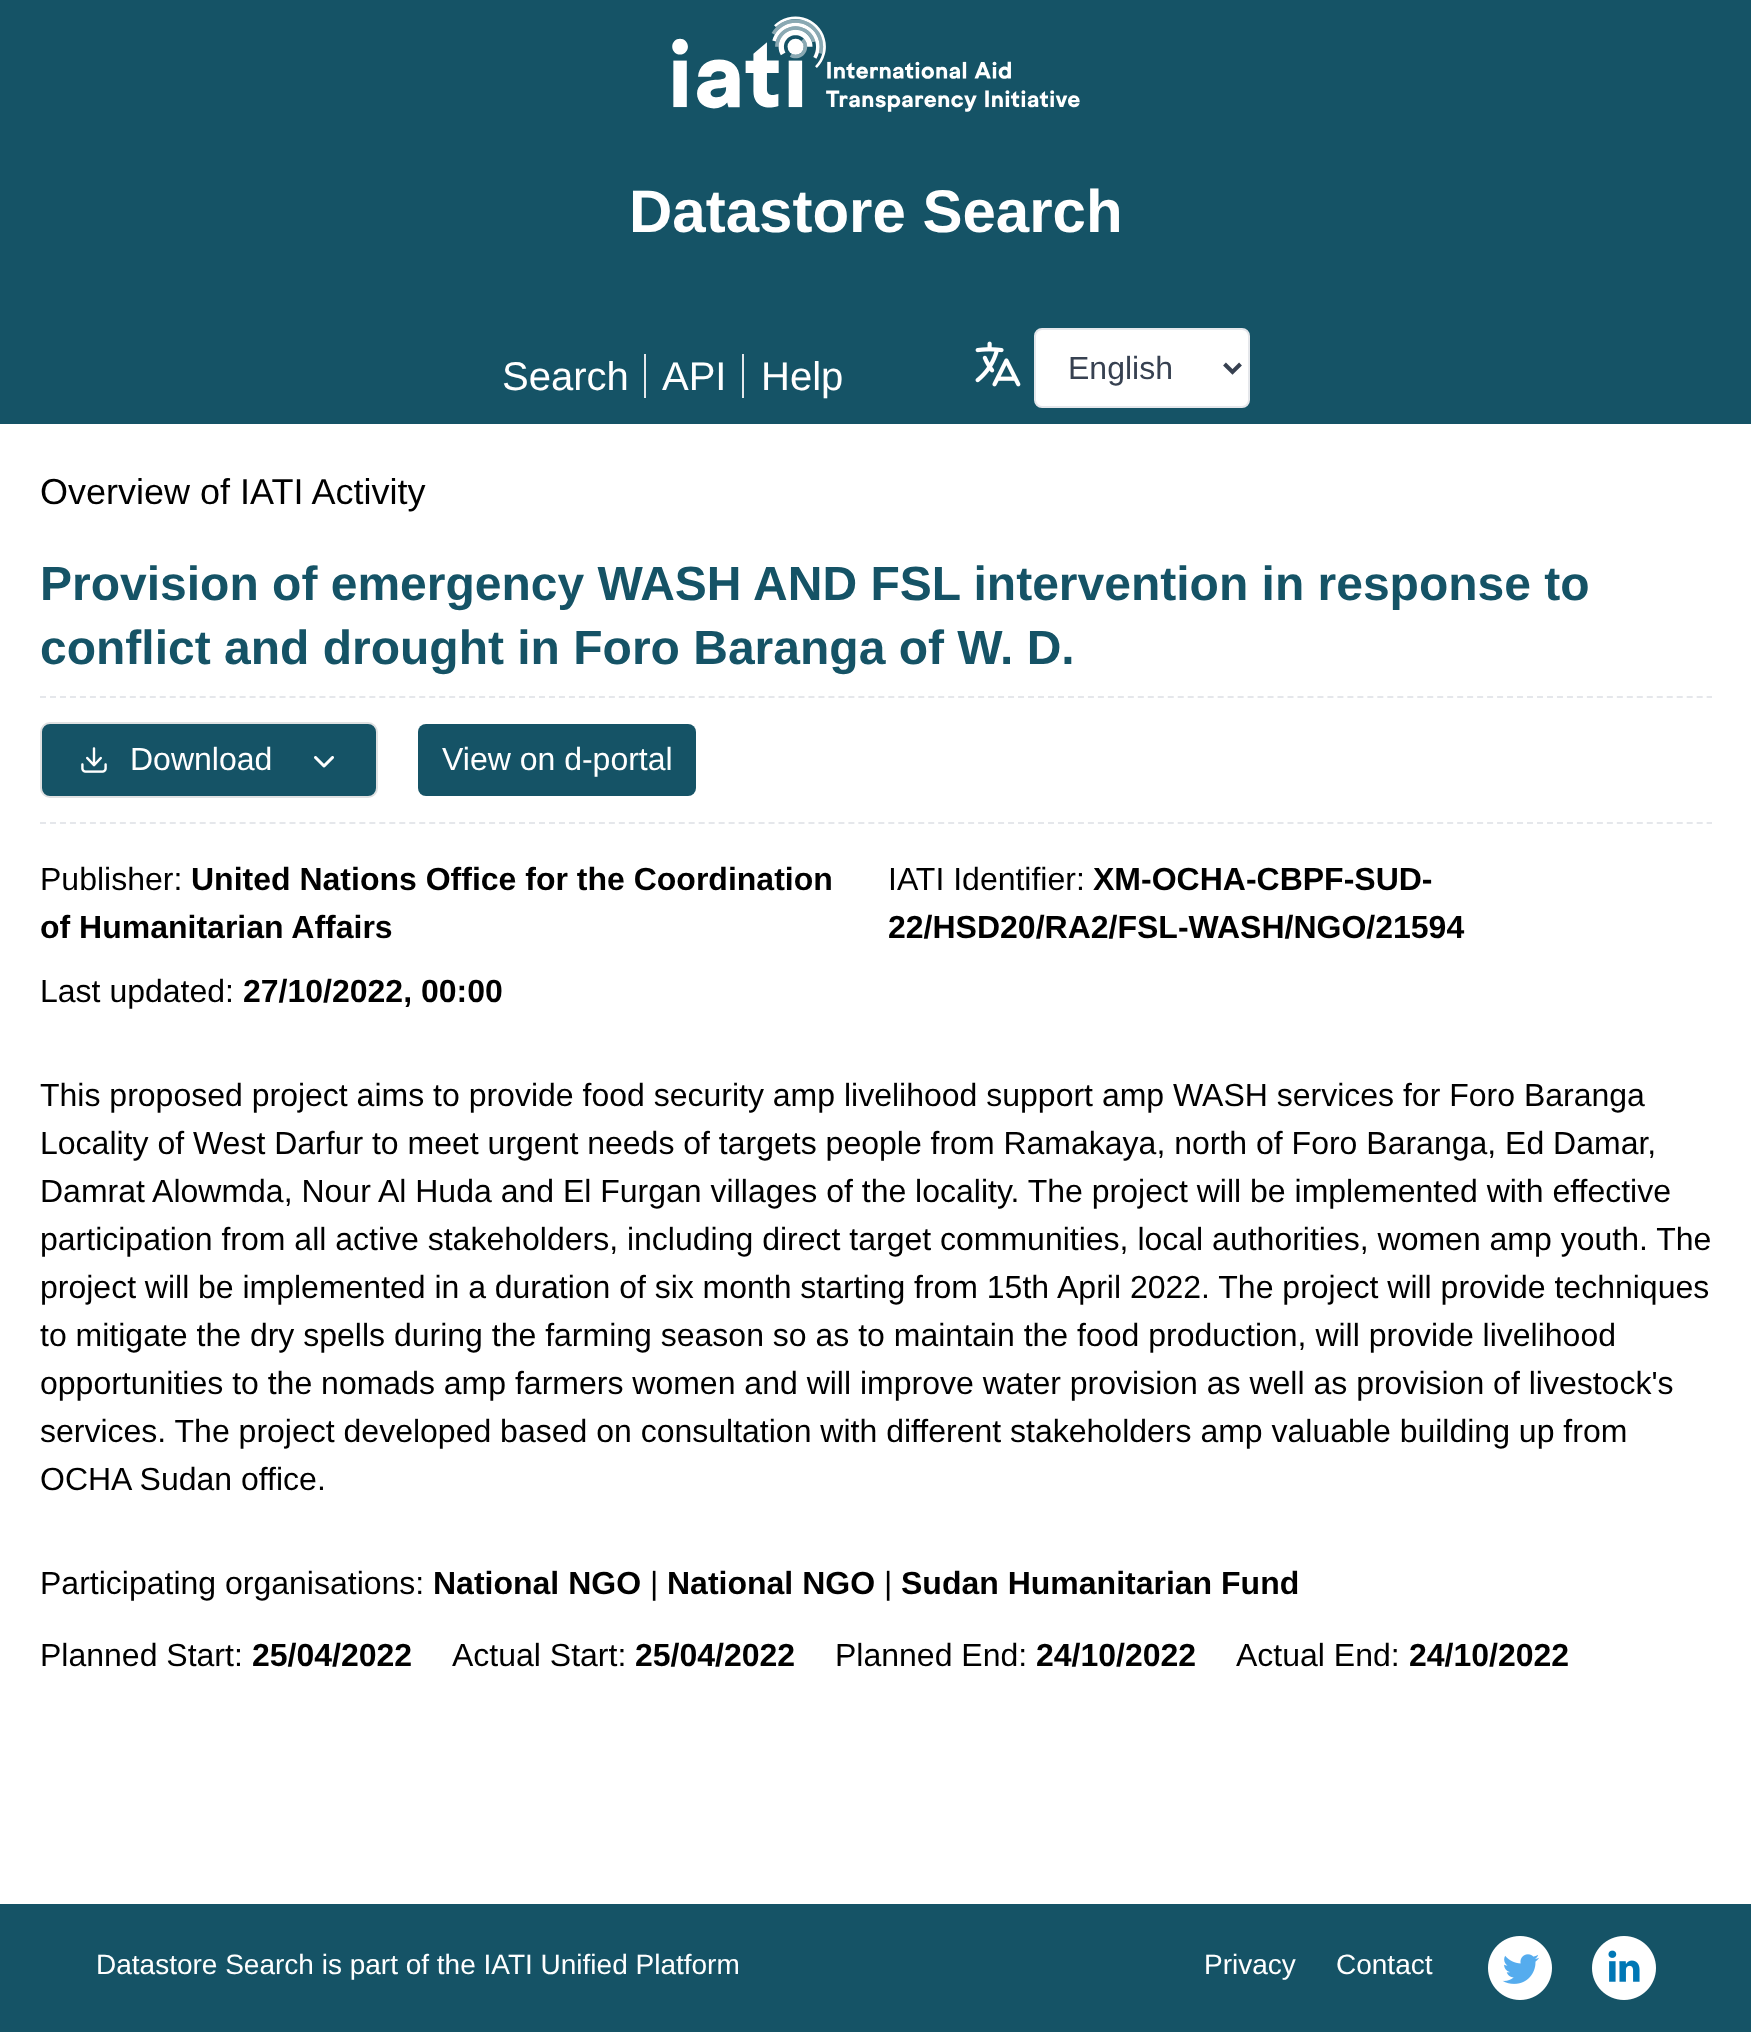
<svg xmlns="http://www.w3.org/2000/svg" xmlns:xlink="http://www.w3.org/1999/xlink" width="1751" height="2032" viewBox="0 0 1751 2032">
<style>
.cls-1{font:bold 60px Liberation Sans;fill:#ffffff}
.cls-2{font:40px Liberation Sans;fill:#ffffff}
.cls-3{font:32px Liberation Sans;fill:#374151}
.cls-4{font:36px Liberation Sans;fill:#000000}
.cls-5{font:bold 48px Liberation Sans;fill:#155366}
.cls-6{font:32px Liberation Sans;fill:#ffffff}
.cls-7{font:32px Liberation Sans;fill:#000000}
.cls-8{font:bold 32px Liberation Sans;fill:#000000}
.cls-9{font:28px Liberation Sans;fill:#ffffff}
</style>
<rect width="100%" height="100%" fill="#ffffff"/>
<rect fill="#155366" x="0" y="0" width="1751" height="424"/>
<image xlink:href="image0.png" x="672" y="16" width="408" height="96"/>
<rect fill="#e5e7eb" x="644" y="354" width="2" height="44"/>
<rect fill="#e5e7eb" x="742" y="354" width="2" height="44"/>
<image xlink:href="image1.png" x="975" y="341" width="46" height="46"/>
<rect fill="#ffffff" stroke="#e5e7eb" stroke-width="2" x="1035" y="329" width="214" height="78" rx="7"/>
<path fill="none" stroke="#374151" stroke-width="4" d="M1224.5 364L1232.5 372L1240.5 364"/>
<path fill="none" stroke="#e5e7eb" stroke-width="2" stroke-dasharray="6 3.98" d="M40 697H1712"/>
<path fill="none" stroke="#e5e7eb" stroke-width="2" stroke-dasharray="6 3.98" d="M40 823H1712"/>
<rect fill="#155366" stroke="#e0e1e2" stroke-width="2" x="41" y="723" width="336" height="74" rx="9"/>
<image xlink:href="image2.png" x="81" y="747" width="26" height="26"/>
<image xlink:href="image3.png" x="314" y="756" width="20" height="12"/>
<rect fill="#155366" x="418" y="724" width="278" height="72" rx="8"/>
<rect fill="#155366" x="0" y="1904" width="1751" height="128"/>
<image xlink:href="image4.png" x="1488" y="1936" width="64" height="64"/>
<image xlink:href="image5.png" x="1592" y="1936" width="64" height="64"/>
<text class="cls-1" x="629" y="232">Datastore Search</text>
<text class="cls-2" x="502" y="390">Search</text>
<text class="cls-2" x="662" y="390">API</text>
<text class="cls-2" x="761" y="390">Help</text>
<text class="cls-3" x="1068" y="379">English</text>
<text class="cls-4" x="40" y="504">Overview of IATI Activity</text>
<text class="cls-5"><tspan x="40" y="600">Provision of emergency WASH AND FSL intervention in response to</tspan><tspan x="40" y="664">conflict and drought in Foro Baranga of W. D.</tspan></text>
<text class="cls-6" x="130" y="770">Download</text>
<text class="cls-6" x="442" y="770">View on d-portal</text>
<text class="cls-7" x="40" y="890">Publisher:</text>
<text class="cls-8" x="191" y="890">United Nations Office for the Coordination</text>
<text class="cls-8" x="40" y="938">of Humanitarian Affairs</text>
<text class="cls-7" x="888" y="890">IATI Identifier:</text>
<text class="cls-8" x="1093" y="890">XM-OCHA-CBPF-SUD-</text>
<text class="cls-8" x="888" y="938">22/HSD20/RA2/FSL-WASH/NGO/21594</text>
<text class="cls-7" x="40" y="1002">Last updated:</text>
<text class="cls-8" x="243" y="1002">27/10/2022, 00:00</text>
<text class="cls-7"><tspan x="40" y="1106">This proposed project aims to provide food security amp livelihood support amp WASH services for Foro Baranga</tspan><tspan x="40" y="1154">Locality of West Darfur to meet urgent needs of targets people from Ramakaya, north of Foro Baranga, Ed Damar,</tspan><tspan x="40" y="1202">Damrat Alowmda, Nour Al Huda and El Furgan villages of the locality. The project will be implemented with effective</tspan><tspan x="40" y="1250">participation from all active stakeholders, including direct target communities, local authorities, women amp youth. The</tspan><tspan x="40" y="1298" word-spacing="-0.1">project will be implemented in a duration of six month starting from 15th</tspan></text>
<text class="cls-7" x="1057" y="1298">April 2022. The project will provide techniques</text>
<text class="cls-7"><tspan x="40" y="1346">to mitigate the dry spells during the farming season so as to maintain the food production, will provide livelihood</tspan><tspan x="40" y="1394">opportunities to the nomads amp farmers women and will improve water provision as well as provision of livestock's</tspan><tspan x="40" y="1442">services. The project developed based on consultation with different stakeholders amp valuable building up from</tspan><tspan x="40" y="1490">OCHA Sudan office.</tspan></text>
<text class="cls-7" x="40" y="1594">Participating organisations:</text>
<text class="cls-8" x="433" y="1594">National NGO</text>
<text class="cls-7" x="650" y="1594">|</text>
<text class="cls-8" x="667" y="1594">National NGO</text>
<text class="cls-7" x="884" y="1594">|</text>
<text class="cls-8" x="901" y="1594">Sudan Humanitarian Fund</text>
<text class="cls-7" x="40" y="1666">Planned Start:</text>
<text class="cls-8" x="252" y="1666">25/04/2022</text>
<text class="cls-7" x="452" y="1666">Actual Start:</text>
<text class="cls-8" x="635" y="1666">25/04/2022</text>
<text class="cls-7" x="835" y="1666">Planned End:</text>
<text class="cls-8" x="1036" y="1666">24/10/2022</text>
<text class="cls-7" x="1236" y="1666">Actual End:</text>
<text class="cls-8" x="1409" y="1666">24/10/2022</text>
<text class="cls-9" x="96" y="1974">Datastore Search is part of the IATI Unified Platform</text>
<text class="cls-9" x="1204" y="1974">Privacy</text>
<text class="cls-9" x="1336" y="1974">Contact</text>
</svg>
